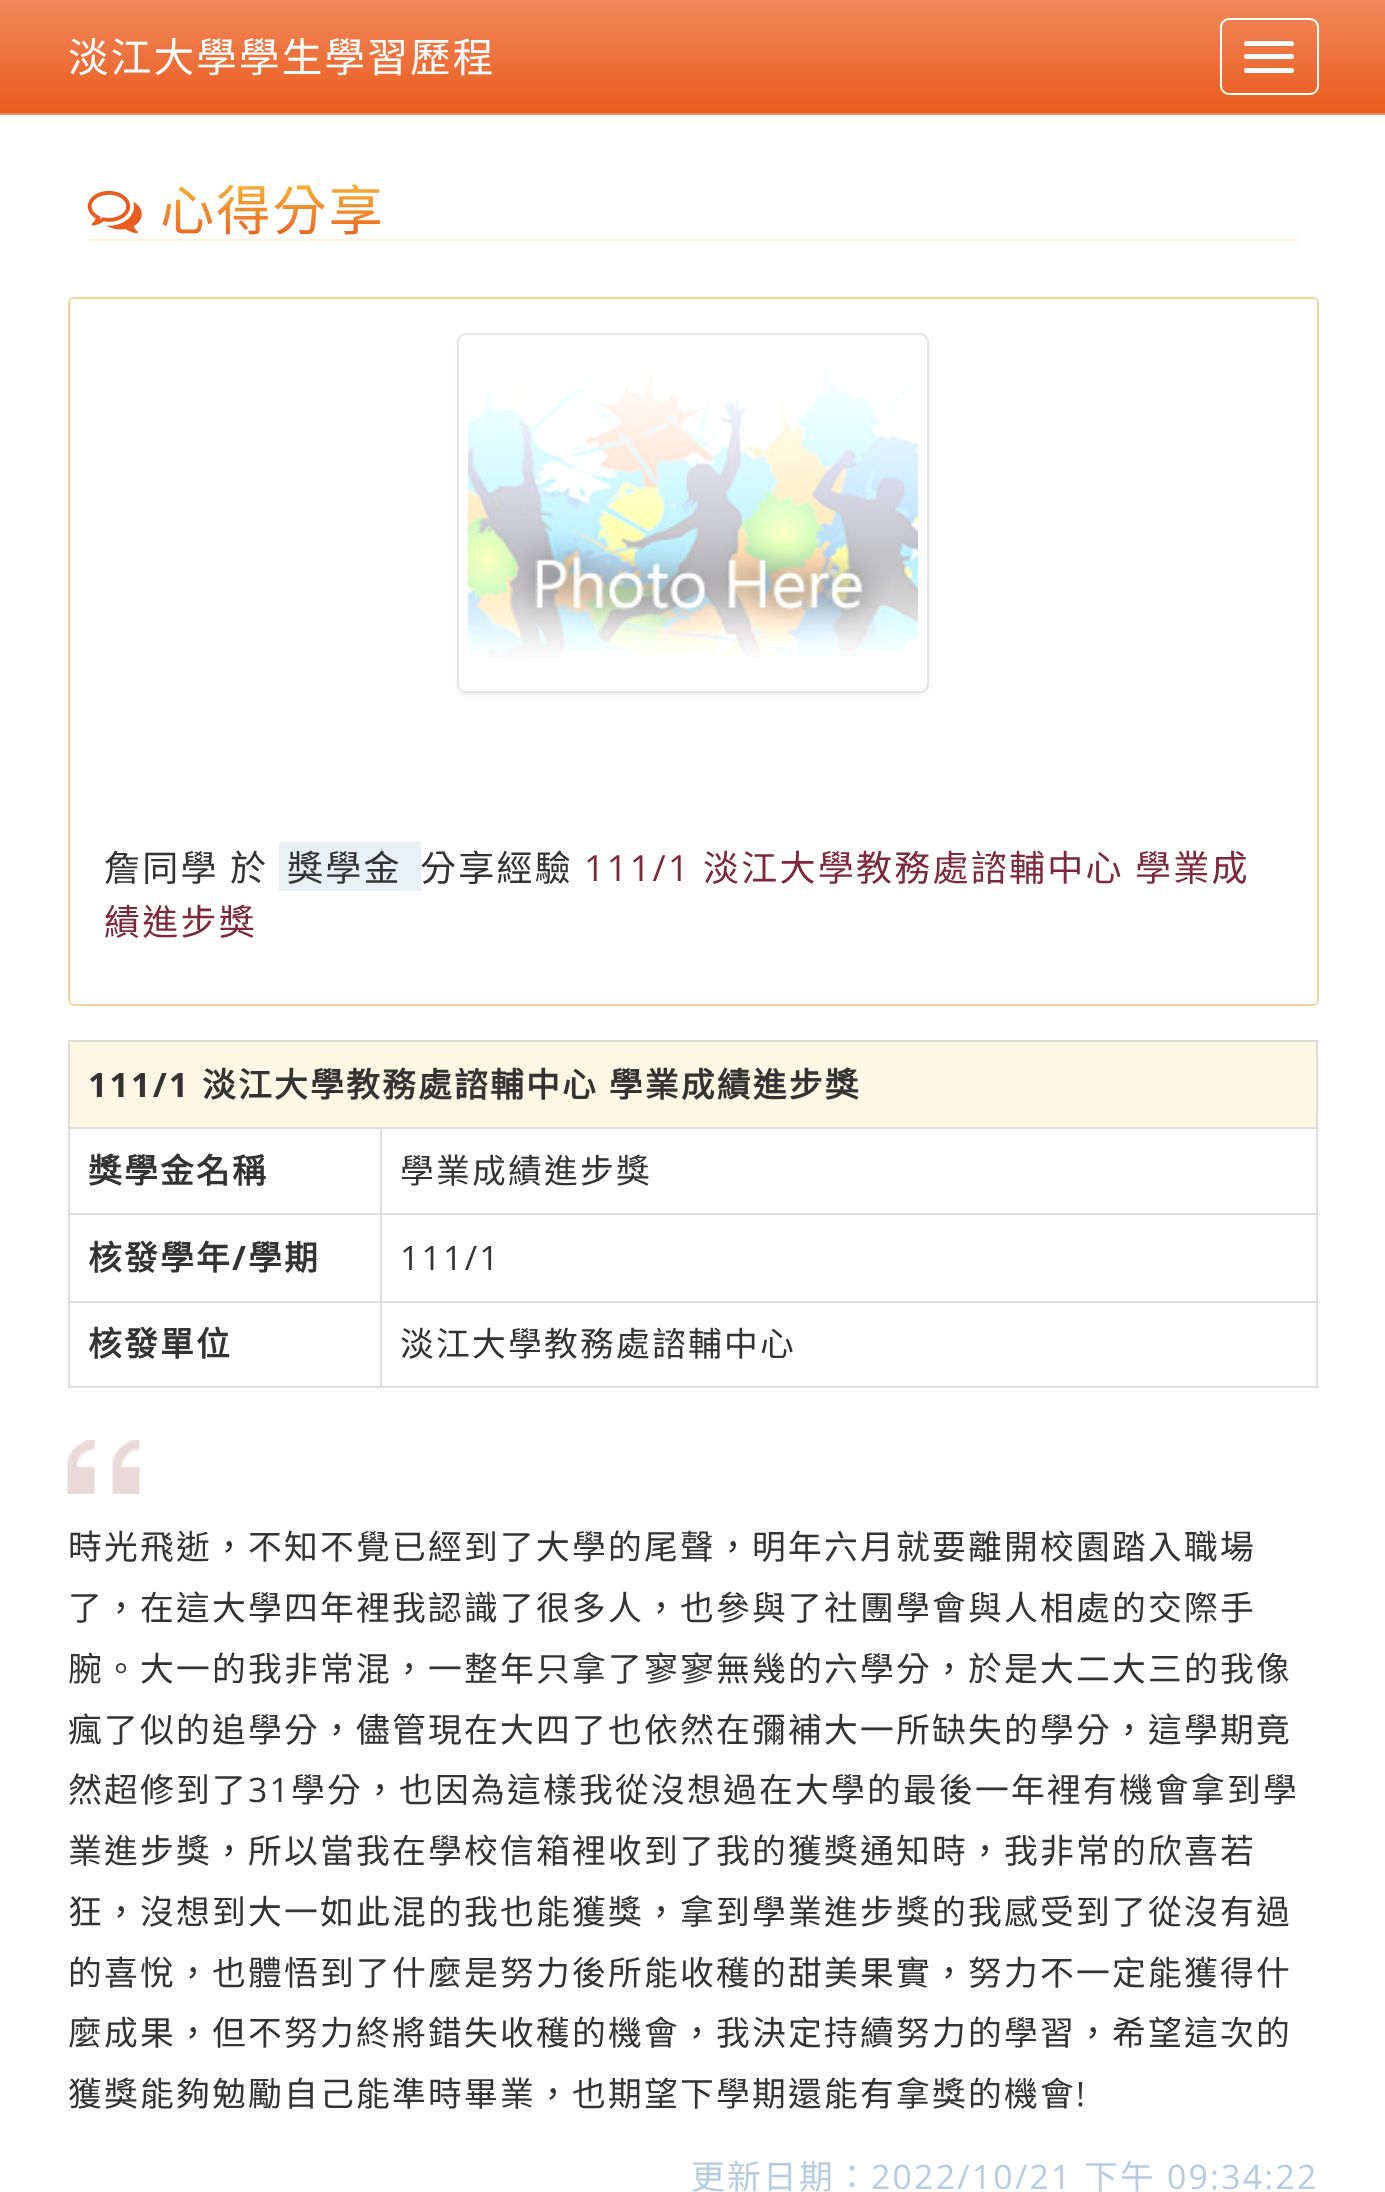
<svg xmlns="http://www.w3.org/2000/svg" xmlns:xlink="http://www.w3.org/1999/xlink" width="1385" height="2192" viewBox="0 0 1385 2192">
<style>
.cls-1{font:40.5px Noto Sans CJK TC;letter-spacing:2.25px;fill:#ffffff}
.cls-2{font:54px Noto Sans CJK TC;letter-spacing:2.25px;fill:url(#g1)}
.cls-3{font:36px Noto Sans CJK TC;letter-spacing:2.25px;fill:#333333}
.cls-4{font:36px Open Sans;letter-spacing:2.25px;fill:#7d283d}
.cls-5{font:36px Noto Sans CJK TC;letter-spacing:2.25px;fill:#7d283d}
.cls-6{font:bold 33.75px Open Sans;letter-spacing:2.25px;fill:#333333}
.cls-7{font:bold 33.75px Noto Sans CJK TC;letter-spacing:2.25px;fill:#333333}
.cls-8{font:33.75px Noto Sans CJK TC;letter-spacing:2.25px;fill:#333333}
.cls-9{font:33.75px Open Sans;letter-spacing:2.25px;fill:#333333}
.cls-10{font:33.75px Noto Sans CJK TC;letter-spacing:2.25px;fill:#b6cde1}
.cls-11{font:33.75px Open Sans;letter-spacing:2.25px;fill:#b6cde1}
</style>
<defs>
<linearGradient id="g1" gradientUnits="userSpaceOnUse" x1="693" y1="180" x2="693" y2="242"><stop offset="0" stop-color="#fbb536"/><stop offset="1" stop-color="#ea5c1e"/></linearGradient>
<linearGradient id="g2" gradientUnits="userSpaceOnUse" x1="693" y1="0" x2="693" y2="113"><stop offset="0" stop-color="#f1885b"/><stop offset="1" stop-color="#ea5c1e"/></linearGradient>
</defs>
<rect width="100%" height="100%" fill="#ffffff"/>
<rect fill="url(#g2)" x="0" y="0" width="1385" height="113"/>
<rect fill="#f1885b" x="0" y="113" width="1385" height="2"/>
<rect fill="none" stroke="#ffffff" stroke-width="2" x="1221" y="19" width="97" height="75" rx="8"/>
<rect fill="#ffffff" x="1244" y="41" width="50" height="5" rx="2.5"/>
<rect fill="#ffffff" x="1244" y="54" width="50" height="5" rx="2.5"/>
<rect fill="#ffffff" x="1244" y="68" width="50" height="5" rx="2.5"/>
<rect fill="#fef2dc" x="88" y="239" width="1210" height="2"/>
<image xlink:href="image0.png" x="87" y="190" width="55" height="44"/>
<rect fill="none" stroke="#f7d29d" stroke-width="2" x="69" y="298" width="1249" height="707" rx="5"/>
<rect fill="#000000" fill-opacity="0.07" filter="blur(2px)" x="457" y="335" width="472" height="360" rx="9"/>
<rect fill="#ffffff" stroke="#e6e6e6" stroke-width="2" x="458" y="334" width="470" height="358" rx="8"/>
<image xlink:href="image1.png" x="468" y="364" width="450" height="294"/>
<rect fill="#e7f0f3" x="279" y="842" width="142" height="49"/>
<rect fill="#dddddd" x="68" y="1040" width="1251" height="2"/>
<rect fill="#fcf8e3" x="70" y="1042" width="1249" height="85"/>
<rect fill="#dddddd" x="1316" y="1040" width="2" height="348"/>
<rect fill="#dddddd" x="68" y="1386" width="1251" height="2"/>
<rect fill="#dddddd" x="68" y="1040" width="2" height="348"/>
<rect fill="#dddddd" x="380" y="1127" width="939" height="2"/>
<rect fill="#dddddd" x="380" y="1213" width="939" height="2"/>
<rect fill="#dddddd" x="380" y="1301" width="939" height="2"/>
<rect fill="#dddddd" x="380" y="1301" width="2" height="87"/>
<rect fill="#dddddd" x="68" y="1301" width="315" height="2"/>
<rect fill="#dddddd" x="380" y="1213" width="2" height="90"/>
<rect fill="#dddddd" x="68" y="1213" width="315" height="2"/>
<rect fill="#dddddd" x="380" y="1127" width="2" height="88"/>
<rect fill="#dddddd" x="68" y="1127" width="315" height="2"/>
<image xlink:href="image2.png" x="67" y="1440" width="73" height="54"/>
<text class="cls-1" x="68" y="72">淡江大學學生學習歷程</text>
<text class="cls-2" x="160" y="230">心得分享</text>
<text class="cls-3" x="104" y="881">詹同學</text>
<text class="cls-3" x="230" y="881">於</text>
<text class="cls-3" x="287" y="881">獎學金</text>
<text class="cls-3" x="420" y="881">分享經驗</text>
<text class="cls-4" x="584" y="881">111/1</text>
<text class="cls-5" x="703" y="881" word-spacing="1">淡江大學教務處諮輔中心 學業成</text>
<text class="cls-5" x="104" y="935">績進步獎</text>
<text class="cls-6" x="88" y="1097">111/1</text>
<text class="cls-7" x="202" y="1097" word-spacing="1">淡江大學教務處諮輔中心 學業成績進步獎</text>
<text class="cls-7" x="88" y="1183">獎學金名稱</text>
<text class="cls-8" x="400" y="1183">學業成績進步獎</text>
<text class="cls-7" x="88" y="1270">核發學年</text>
<text class="cls-6" x="232" y="1270">/</text>
<text class="cls-7" x="248" y="1270">學期</text>
<text class="cls-9" x="400" y="1270">111/1</text>
<text class="cls-7" x="88" y="1356">核發單位</text>
<text class="cls-8" x="400" y="1356">淡江大學教務處諮輔中心</text>
<text class="cls-8"><tspan x="68" y="1559">時光飛逝，不知不覺已經到了大學的尾聲，明年六月就要離開校園踏入職場</tspan><tspan x="68" y="1620">了，在這大學四年裡我認識了很多人，也參與了社團學會與人相處的交際手</tspan><tspan x="68" y="1681">腕。大一的我非常混，一整年只拿了寥寥無幾的六學分，於是大二大三的我像</tspan><tspan x="68" y="1742">瘋了似的追學分，儘管現在大四了也依然在彌補大一所缺失的學分，這學期竟</tspan><tspan x="68" y="1802">然超修到了</tspan></text>
<text class="cls-9" x="248" y="1802">31</text>
<text class="cls-8" x="291" y="1802">學分，也因為這樣我從沒想過在大學的最後一年裡有機會拿到學</text>
<text class="cls-8"><tspan x="68" y="1863">業進步獎，所以當我在學校信箱裡收到了我的獲獎通知時，我非常的欣喜若</tspan><tspan x="68" y="1924">狂，沒想到大一如此混的我也能獲獎，拿到學業進步獎的我感受到了從沒有過</tspan><tspan x="68" y="1985">的喜悅，也體悟到了什麼是努力後所能收穫的甜美果實，努力不一定能獲得什</tspan><tspan x="68" y="2045">麼成果，但不努力終將錯失收穫的機會，我決定持續努力的學習，希望這次的</tspan><tspan x="68" y="2106">獲獎能夠勉勵自己能準時畢業，也期望下學期還能有拿獎的機會</tspan></text>
<text class="cls-9" x="1076" y="2106">!</text>
<text class="cls-10" x="691" y="2189">更新日期：</text>
<text class="cls-11" x="871" y="2189">2022/10/21</text>
<text class="cls-10" x="1084" y="2189">下午</text>
<text class="cls-11" x="1167" y="2189">09:34:22</text>
</svg>
